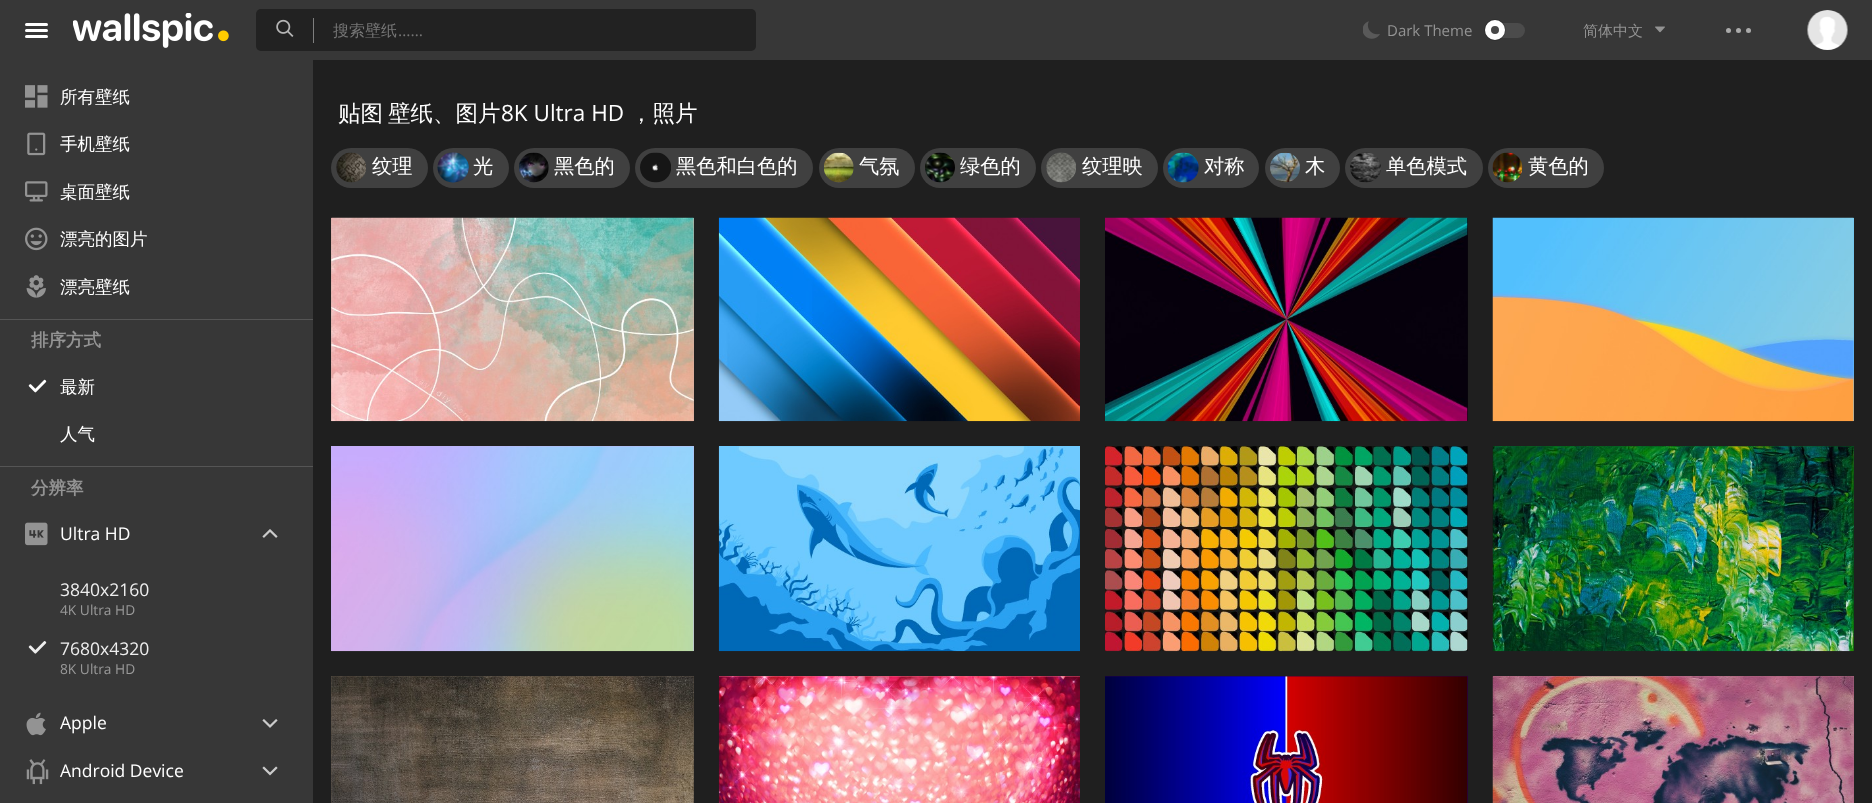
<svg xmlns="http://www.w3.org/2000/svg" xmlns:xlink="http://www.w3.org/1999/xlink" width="1872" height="803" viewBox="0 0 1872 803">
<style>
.cls-1{font:500 16px WenQuanYi Zen Hei;fill:#757575}
.cls-2{font:16px Open Sans;fill:#757575}
.cls-3{font:15px Open Sans;fill:#939393}
.cls-4{font:500 15px WenQuanYi Zen Hei;fill:#939393}
.cls-5{font:500 17.5px WenQuanYi Zen Hei;fill:#ffffff}
.cls-6{font:bold 17.5px WenQuanYi Zen Hei;fill:#939393}
.cls-7{font:17.5px Open Sans;fill:#ffffff}
.cls-8{font:17.5px Open Sans;fill:#eeeeee}
.cls-9{font:13.75px Open Sans;fill:#999999}
.cls-10{font:500 22.5px WenQuanYi Zen Hei;fill:#ffffff}
.cls-11{font:22.5px Open Sans;fill:#ffffff}
.cls-12{font:500 20.25px WenQuanYi Zen Hei;fill:#ffffff}
</style>
<rect width="100%" height="100%" fill="#1f1f1f"/>
<rect fill="#373737" x="0" y="0" width="1872" height="60"/>
<rect fill="#ffffff" x="25" y="23" width="23" height="3" rx="1.5"/>
<rect fill="#ffffff" x="25" y="29" width="23" height="3" rx="1.5"/>
<rect fill="#ffffff" x="25" y="35" width="23" height="3" rx="1.5"/>
<image xlink:href="image0.png" x="73" y="13" width="156" height="35"/>
<rect fill="#222222" x="256" y="9" width="500" height="42" rx="5"/>
<image xlink:href="image1.png" x="276" y="19" width="18" height="18"/>
<rect fill="#7e7e7e" x="313" y="18" width="1" height="25"/>
<image xlink:href="image2.png" x="1363" y="21" width="17" height="18"/>
<rect fill="#4b4b4b" x="1485" y="23" width="40" height="15" rx="7.5"/>
<circle fill="none" stroke="#000000" stroke-opacity="0.15" cx="1495" cy="30" r="10.5"/>
<circle fill="#474747" stroke="#ffffff" stroke-width="6" cx="1495" cy="30" r="7"/>
<image xlink:href="image3.png" x="1655" y="26" width="10" height="7"/>
<circle fill="#aaaaaa" cx="1728.5" cy="30.5" r="2.5"/>
<circle fill="#aaaaaa" cx="1738.5" cy="30.5" r="2.5"/>
<circle fill="#aaaaaa" cx="1748.5" cy="30.5" r="2.5"/>
<image xlink:href="image4.png" x="1807" y="10" width="41" height="40"/>
<rect fill="#373737" x="0" y="60" width="313" height="743"/>
<image xlink:href="image5.png" x="25" y="85" width="23" height="23"/>
<image xlink:href="image6.png" x="27" y="132" width="19" height="24"/>
<image xlink:href="image7.png" x="25" y="181" width="23" height="21"/>
<image xlink:href="image8.png" x="25" y="227" width="23" height="24"/>
<image xlink:href="image9.png" x="26" y="275" width="20" height="23"/>
<rect fill="#555555" x="0" y="319" width="313" height="1"/>
<image xlink:href="image10.png" x="28" y="379" width="19" height="14"/>
<rect fill="#555555" x="0" y="466" width="313" height="1"/>
<image xlink:href="image11.png" x="25" y="522" width="23" height="24"/>
<image xlink:href="image12.png" x="262" y="529" width="16" height="9"/>
<image xlink:href="image13.png" x="28" y="641" width="19" height="13"/>
<image xlink:href="image14.png" x="26" y="712" width="20" height="24"/>
<image xlink:href="image15.png" x="262" y="719" width="16" height="9"/>
<image xlink:href="image16.png" x="26" y="759" width="23" height="26"/>
<image xlink:href="image17.png" x="262" y="766" width="16" height="10"/>
<rect fill="#404040" x="331" y="148" width="97" height="40" rx="20"/>
<image xlink:href="image18.png" x="336" y="152" width="30" height="31"/>
<rect fill="#404040" x="433" y="148" width="76" height="40" rx="20"/>
<image xlink:href="image19.png" x="437" y="152" width="32" height="31"/>
<rect fill="#404040" x="514" y="148" width="116" height="40" rx="20"/>
<image xlink:href="image20.png" x="519" y="152" width="30" height="31"/>
<rect fill="#404040" x="635" y="148" width="178" height="40" rx="20"/>
<image xlink:href="image21.png" x="640" y="152" width="31" height="31"/>
<rect fill="#404040" x="819" y="148" width="96" height="40" rx="20"/>
<image xlink:href="image22.png" x="824" y="152" width="30" height="31"/>
<rect fill="#404040" x="920" y="148" width="116" height="40" rx="20"/>
<image xlink:href="image23.png" x="925" y="152" width="30" height="31"/>
<rect fill="#404040" x="1041" y="148" width="117" height="40" rx="20"/>
<image xlink:href="image24.png" x="1046" y="152" width="30" height="31"/>
<rect fill="#404040" x="1163" y="148" width="96" height="40" rx="20"/>
<image xlink:href="image25.png" x="1167" y="152" width="32" height="31"/>
<rect fill="#404040" x="1265" y="148" width="75" height="40" rx="20"/>
<image xlink:href="image26.png" x="1270" y="152" width="30" height="31"/>
<rect fill="#404040" x="1345" y="148" width="138" height="40" rx="20"/>
<image xlink:href="image27.png" x="1350" y="152" width="31" height="31"/>
<rect fill="#404040" x="1488" y="148" width="116" height="40" rx="20"/>
<image xlink:href="image28.png" x="1492" y="152" width="31" height="31"/>
<rect fill="#d7b1a7" x="331" y="218" width="363" height="203"/>
<image xlink:href="image29.png" x="331" y="217" width="363" height="205"/>
<rect fill="#c2b5f4" x="331" y="446" width="363" height="205"/>
<image xlink:href="image30.png" x="331" y="446" width="363" height="206"/>
<rect fill="#5a5045" x="331" y="676" width="363" height="127"/>
<image xlink:href="image31.png" x="331" y="676" width="363" height="127"/>
<image xlink:href="image32.png" x="718" y="217" width="362" height="205"/>
<rect fill="#70cbfe" x="719" y="446" width="361" height="1"/>
<image xlink:href="image33.png" x="718" y="446" width="362" height="206"/>
<rect fill="#ec6884" x="719" y="676" width="361" height="1"/>
<image xlink:href="image34.png" x="718" y="676" width="362" height="127"/>
<rect fill="#08040d" x="1467" y="218" width="1" height="203"/>
<image xlink:href="image35.png" x="1105" y="217" width="363" height="205"/>
<rect fill="#100f0d" x="1105" y="446" width="363" height="205"/>
<image xlink:href="image36.png" x="1105" y="446" width="363" height="206"/>
<rect fill="#270443" x="1105" y="676" width="363" height="127"/>
<image xlink:href="image37.png" x="1105" y="676" width="363" height="127"/>
<rect fill="#6bc6f3" x="1853" y="218" width="1" height="203"/>
<image xlink:href="image38.png" x="1492" y="217" width="362" height="205"/>
<rect fill="#0d5d23" x="1493" y="446" width="361" height="205"/>
<image xlink:href="image39.png" x="1492" y="446" width="362" height="206"/>
<rect fill="#b26d85" x="1493" y="676" width="361" height="127"/>
<image xlink:href="image40.png" x="1492" y="676" width="362" height="127"/>
<text class="cls-1" x="333" y="36">搜索壁纸</text>
<text class="cls-2" x="398" y="36">……</text>
<text class="cls-3" x="1387" y="36">Dark Theme</text>
<text class="cls-4" x="1583" y="36">简体中文</text>
<text class="cls-5" x="60" y="103">所有壁纸</text>
<text class="cls-5" x="60" y="150">手机壁纸</text>
<text class="cls-5" x="60" y="198">桌面壁纸</text>
<text class="cls-5" x="60" y="245">漂亮的图片</text>
<text class="cls-5" x="60" y="293">漂亮壁纸</text>
<text class="cls-6" x="31" y="346">排序方式</text>
<text class="cls-5" x="60" y="393">最新</text>
<text class="cls-5" x="60" y="440">人气</text>
<text class="cls-6" x="31" y="494">分辨率</text>
<text class="cls-7" x="60" y="540">Ultra HD</text>
<text class="cls-8" x="60" y="596">3840x2160</text>
<text class="cls-9" x="60" y="615">4K Ultra HD</text>
<text class="cls-8" x="60" y="655">7680x4320</text>
<text class="cls-9" x="60" y="674">8K Ultra HD</text>
<text class="cls-7" x="60" y="729">Apple</text>
<text class="cls-7" x="60" y="777">Android Device</text>
<text class="cls-10" x="338" y="121">贴图</text>
<text class="cls-10" x="388" y="121">壁纸、图片</text>
<text class="cls-11" x="501" y="121">8K Ultra HD</text>
<text class="cls-10" x="630" y="121">，照片</text>
<text class="cls-12" x="372" y="173">纹理</text>
<text class="cls-12" x="473" y="173">光</text>
<text class="cls-12" x="554" y="173">黑色的</text>
<text class="cls-12" x="676" y="173">黑色和白色的</text>
<text class="cls-12" x="859" y="173">气氛</text>
<text class="cls-12" x="960" y="173">绿色的</text>
<text class="cls-12" x="1082" y="173">纹理映</text>
<text class="cls-12" x="1204" y="173">对称</text>
<text class="cls-12" x="1305" y="173">木</text>
<text class="cls-12" x="1386" y="173">单色模式</text>
<text class="cls-12" x="1528" y="173">黄色的</text>
</svg>
